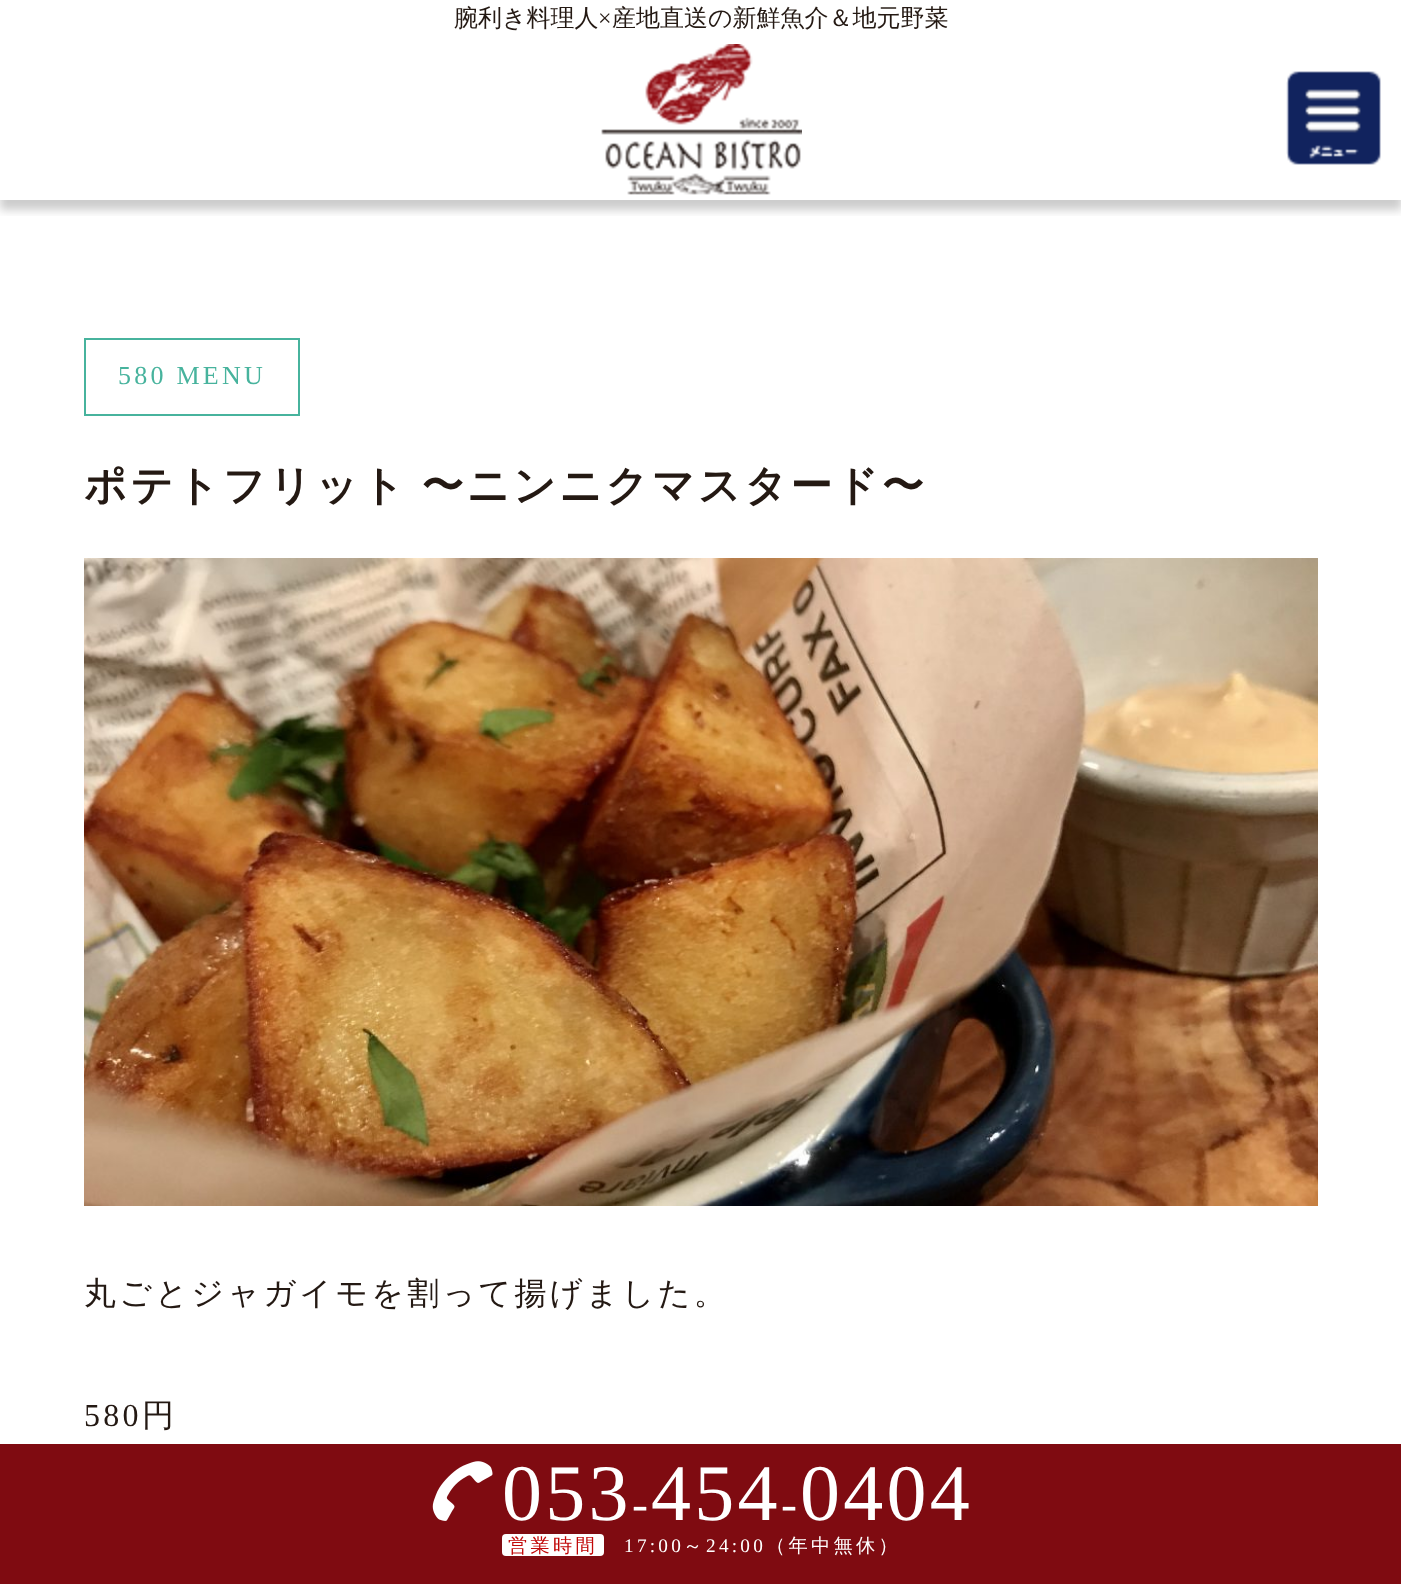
<svg xmlns="http://www.w3.org/2000/svg" xmlns:xlink="http://www.w3.org/1999/xlink" width="1401" height="1584" viewBox="0 0 1401 1584">
<style>
.cls-1{font:500 24px WenQuanYi Zen Hei;fill:#241913}
.cls-2{font:24px Liberation Serif;fill:#241913}
.cls-3{font:26px Liberation Serif;letter-spacing:3.25px;fill:#47b39d}
.cls-4{font:bold 42px WenQuanYi Zen Hei;letter-spacing:3.25px;fill:#241913}
.cls-5{font:500 32px WenQuanYi Zen Hei;letter-spacing:3.25px;fill:#241913}
.cls-6{font:32px Liberation Serif;letter-spacing:3.25px;fill:#241913}
.cls-7{font:80px Liberation Serif;letter-spacing:3.25px;fill:#ffffff}
.cls-8{font:48px Liberation Serif;letter-spacing:3.25px;fill:#ffffff}
.cls-9{font:500 19.25px WenQuanYi Zen Hei;letter-spacing:3.25px;fill:#c10808}
.cls-10{font:19.25px Liberation Serif;letter-spacing:3.25px;fill:#ffffff}
.cls-11{font:500 19.25px WenQuanYi Zen Hei;letter-spacing:3.25px;fill:#ffffff}
</style>
<defs>
<clipPath id="clip1"><rect x="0" y="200" width="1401" height="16"/></clipPath>
</defs>
<rect width="100%" height="100%" fill="#ffffff"/>
<g clip-path="url(#clip1)">
<rect fill="#000000" fill-opacity="0.2" filter="blur(5px)" x="0" y="10" width="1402" height="200"/>
</g>
<image xlink:href="image0.png" x="601" y="44" width="201" height="151"/>
<image xlink:href="image1.png" x="1286" y="71" width="95" height="94"/>
<rect fill="none" stroke="#47b39d" stroke-width="2" x="85" y="339" width="214" height="76"/>
<image xlink:href="image2.png" x="84" y="558" width="1234" height="648"/>
<rect fill="#7f0b11" x="0" y="1444" width="1401" height="140"/>
<image xlink:href="image3.png" x="432" y="1461" width="61" height="60"/>
<rect fill="#ffffff" x="502" y="1534" width="102" height="22" rx="4"/>
<text class="cls-1" x="454" y="26">腕利き料理人</text>
<text class="cls-2" x="598" y="26">×</text>
<text class="cls-1" x="612" y="26">産地直送の新鮮魚介＆地元野菜</text>
<text class="cls-3" x="118" y="384">580 MENU</text>
<text class="cls-4" x="84" y="500" word-spacing="-2">ポテトフリット 〜ニンニクマスタード〜</text>
<text class="cls-5" x="84" y="1304">丸ごとジャガイモを割って揚げました。</text>
<text class="cls-6" x="84" y="1426">580</text>
<text class="cls-5" x="142" y="1426">円</text>
<text class="cls-7" x="502" y="1520">053</text>
<text class="cls-8" x="632" y="1520">-</text>
<text class="cls-7" x="651" y="1520">454</text>
<text class="cls-8" x="781" y="1520">-</text>
<text class="cls-7" x="800" y="1520">0404</text>
<text class="cls-9" x="508" y="1552">営業時間</text>
<text class="cls-10" x="624" y="1552">17:00</text>
<text class="cls-11" x="683" y="1552">～</text>
<text class="cls-10" x="706" y="1552">24:00</text>
<text class="cls-11" x="766" y="1552">（年中無休）</text>
</svg>
